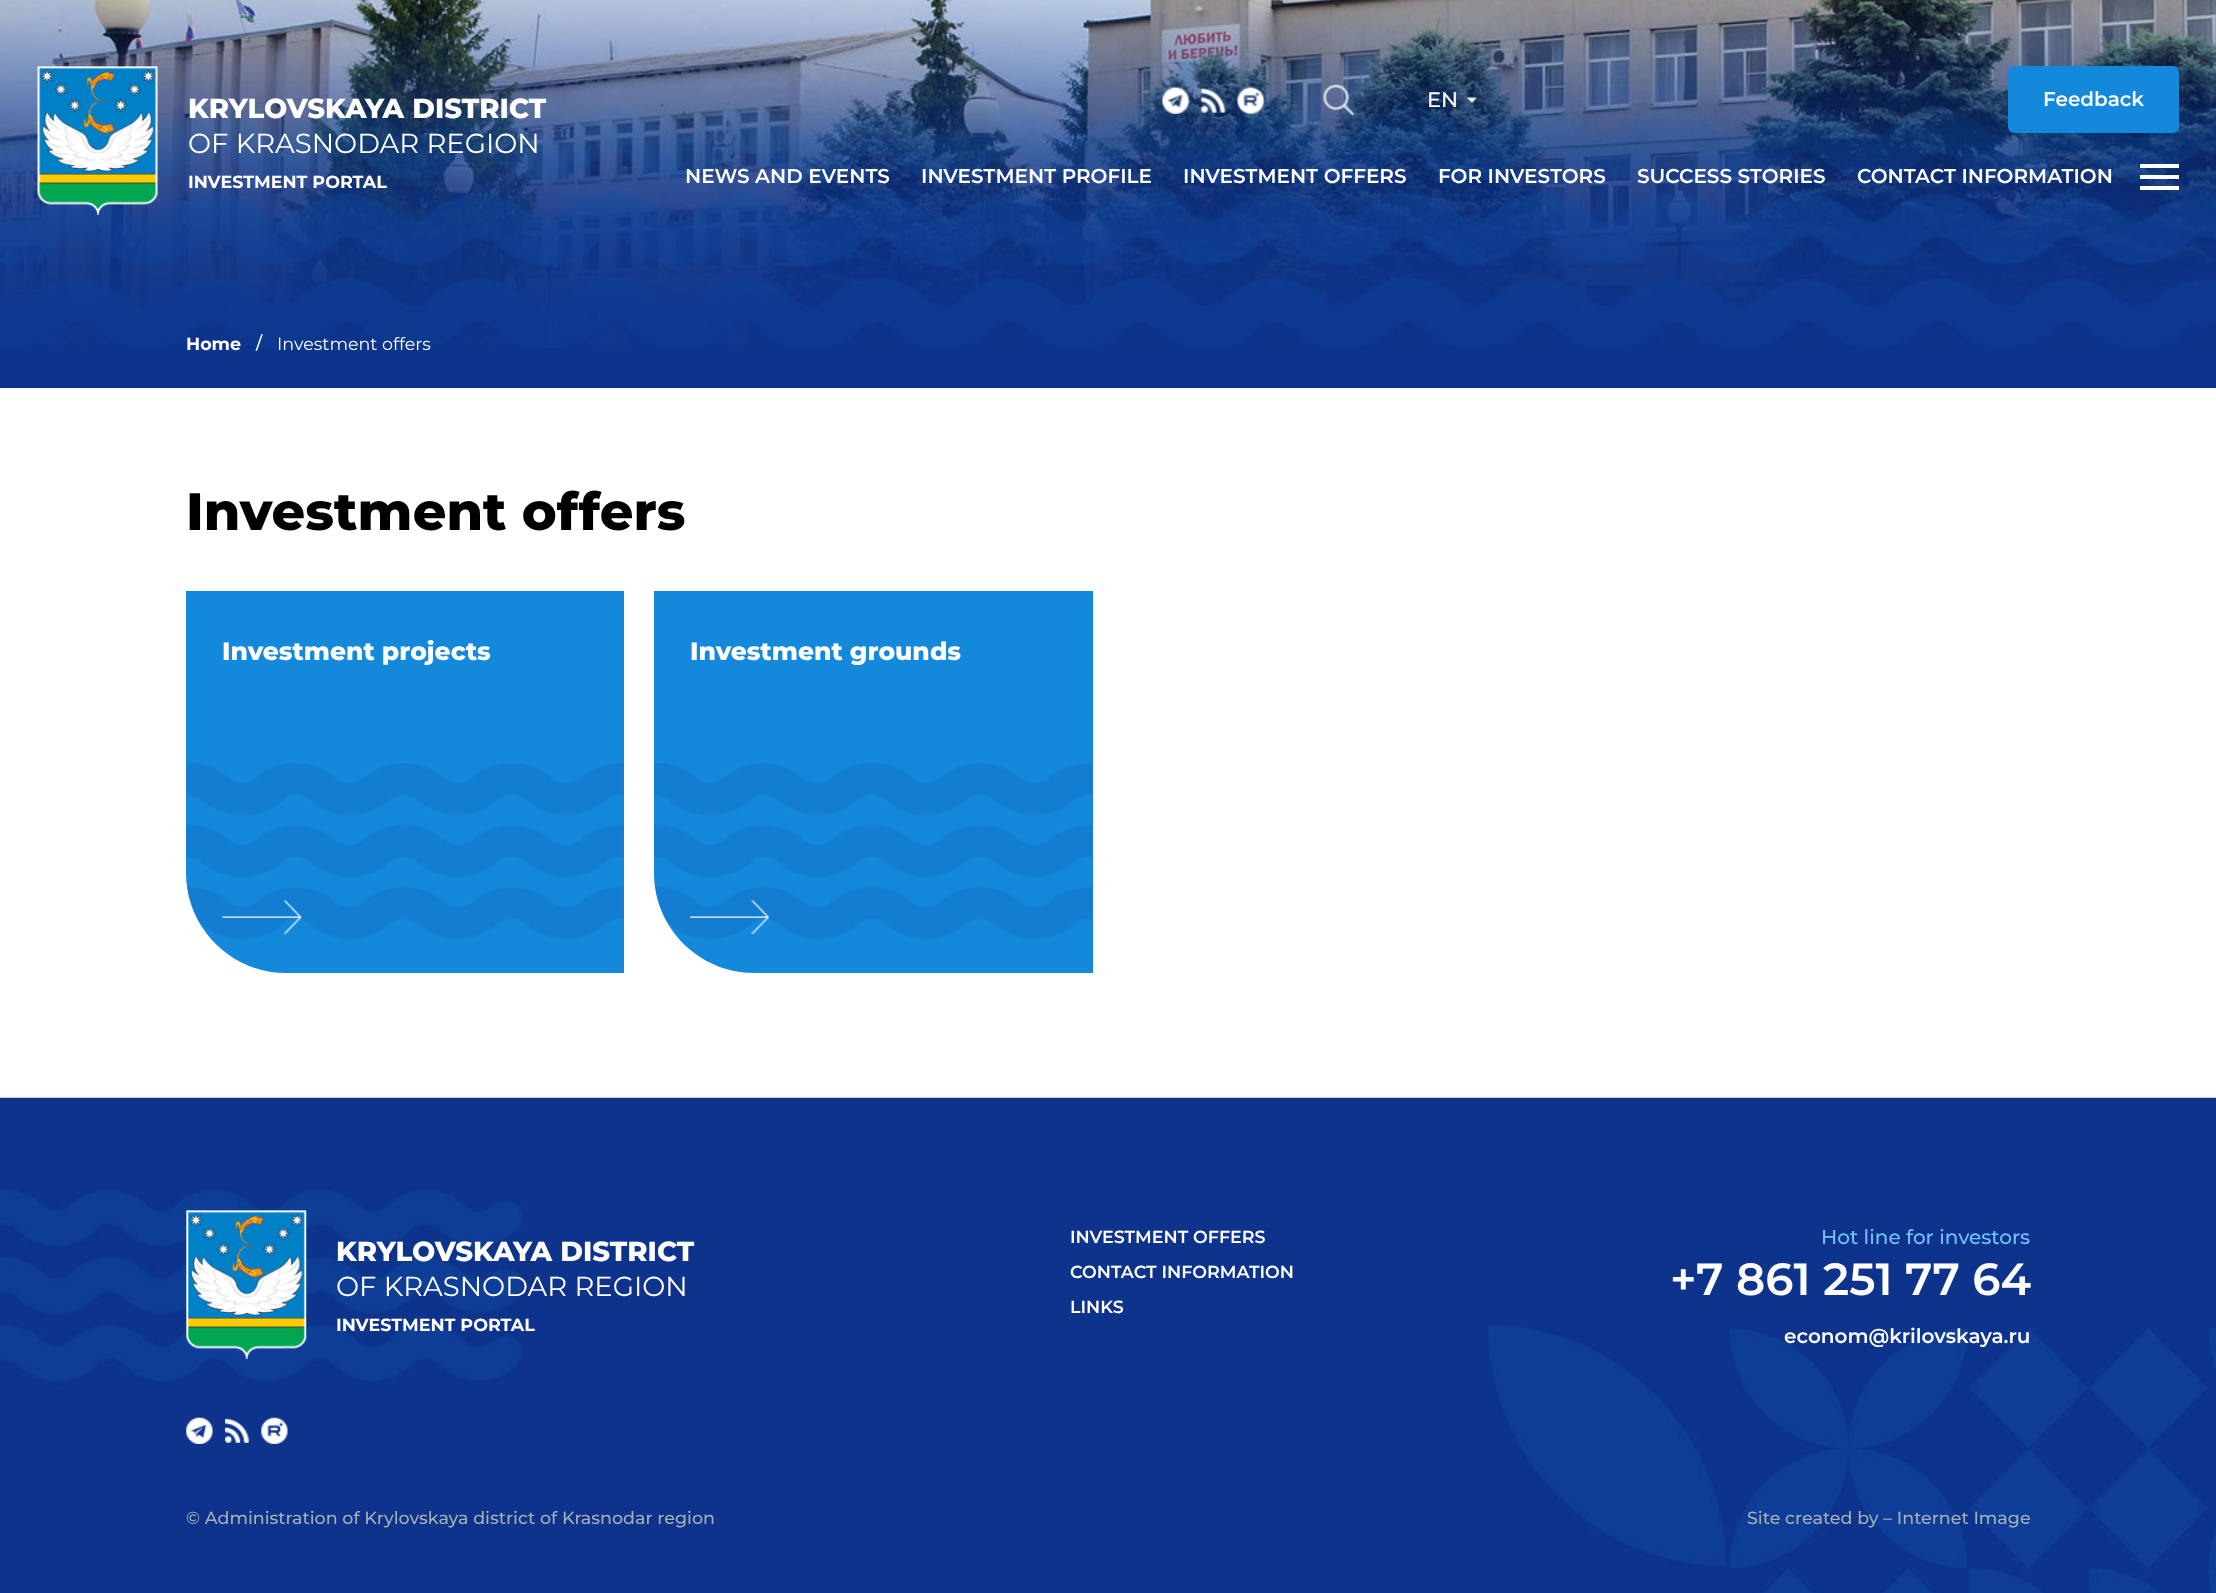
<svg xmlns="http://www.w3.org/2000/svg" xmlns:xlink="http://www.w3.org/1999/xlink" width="2216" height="1593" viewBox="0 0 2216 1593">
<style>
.cls-1{font:800 27.5px Montserrat;fill:#ffffff}
.cls-2{font:27.5px Montserrat;fill:#ffffff}
.cls-3{font:bold 17.5px Montserrat;fill:#ffffff}
.cls-4{font:500 21px Montserrat;fill:#ffffff}
.cls-5{font:600 20px Montserrat;fill:#ffffff}
.cls-6{font:500 17.5px Montserrat;fill:#ffffff}
.cls-7{font:17.5px Montserrat;fill:#ffffff}
.cls-8{font:800 52.5px Montserrat;fill:#000000}
.cls-9{font:800 25px Montserrat;fill:#ffffff}
.cls-10{font:600 17.5px Montserrat;fill:#ffffff}
.cls-11{font:500 20px Montserrat;fill:#75c2f9}
.cls-12{font:600 45px Montserrat;fill:#ffffff}
.cls-13{font:500 17.5px Montserrat;fill:#a6afb5}
</style>
<rect width="100%" height="100%" fill="#ffffff"/>
<rect fill="#0d348c" x="0" y="348" width="2216" height="40"/>
<image xlink:href="image0.png" x="0" y="0" width="2216" height="348"/>
<image xlink:href="image1.png" x="37" y="66" width="121" height="149"/>
<image xlink:href="image2.png" x="1162" y="86" width="28" height="28"/>
<image xlink:href="image3.png" x="1200" y="88" width="26" height="25"/>
<image xlink:href="image4.png" x="1237" y="86" width="28" height="28"/>
<image xlink:href="image5.png" x="1323" y="84" width="32" height="32"/>
<image xlink:href="image6.png" x="1467" y="96" width="10" height="7"/>
<rect fill="#1488db" x="2008" y="66" width="171" height="67" rx="6"/>
<rect fill="#ffffff" x="2140" y="175" width="39" height="4"/>
<rect fill="#ffffff" x="2140" y="164" width="39" height="4"/>
<rect fill="#ffffff" x="2140" y="186" width="39" height="4"/>
<path fill="#1488db" d="M186 591H624V973H286C231 973 186 928 186 873Z"/>
<image xlink:href="image7.png" x="186" y="763" width="438" height="176"/>
<image xlink:href="image8.png" x="222" y="900" width="80" height="34"/>
<path fill="#1488db" d="M654 591H1093V973H754C699 973 654 928 654 873Z"/>
<image xlink:href="image9.png" x="654" y="763" width="438" height="176"/>
<image xlink:href="image10.png" x="690" y="900" width="79" height="34"/>
<image xlink:href="image11.png" x="0" y="1097" width="2216" height="496"/>
<image xlink:href="image12.png" x="186" y="1210" width="121" height="149"/>
<image xlink:href="image13.png" x="186" y="1417" width="27" height="27"/>
<image xlink:href="image14.png" x="225" y="1418" width="24" height="25"/>
<image xlink:href="image15.png" x="261" y="1417" width="27" height="27"/>
<text class="cls-1" x="188" y="118">KRYLOVSKAYA DISTRICT</text>
<text class="cls-2" x="188" y="153">OF KRASNODAR REGION</text>
<text class="cls-3" x="188" y="188">INVESTMENT PORTAL</text>
<text class="cls-4" x="1427" y="107">EN</text>
<text class="cls-5" x="2043" y="106">Feedback</text>
<text class="cls-5" x="685" y="183">NEWS AND EVENTS</text>
<text class="cls-5" x="921" y="183">INVESTMENT PROFILE</text>
<text class="cls-5" x="1183" y="183">INVESTMENT OFFERS</text>
<text class="cls-5" x="1438" y="183">FOR INVESTORS</text>
<text class="cls-5" x="1637" y="183">SUCCESS STORIES</text>
<text class="cls-5" x="1857" y="183">CONTACT INFORMATION</text>
<text class="cls-3" x="186" y="350">Home</text>
<text class="cls-6" x="256" y="349">/</text>
<text class="cls-7" x="277" y="350">Investment offers</text>
<text class="cls-8" x="186" y="530">Investment offers</text>
<text class="cls-9" x="222" y="660">Investment projects</text>
<text class="cls-9" x="690" y="660">Investment grounds</text>
<text class="cls-1" x="336" y="1261">KRYLOVSKAYA DISTRICT</text>
<text class="cls-2" x="336" y="1296">OF KRASNODAR REGION</text>
<text class="cls-3" x="336" y="1331">INVESTMENT PORTAL</text>
<text class="cls-10" x="1070" y="1243">INVESTMENT OFFERS</text>
<text class="cls-10" x="1070" y="1278">CONTACT INFORMATION</text>
<text class="cls-10" x="1070" y="1313">LINKS</text>
<text class="cls-11" x="1821" y="1244">Hot line for investors</text>
<text class="cls-12" x="1670" y="1295">+7 861 251 77 64</text>
<text class="cls-5" x="1784" y="1343">econom@krilovskaya.ru</text>
<text class="cls-13" x="186" y="1524">© Administration of Krylovskaya district of Krasnodar region</text>
<text class="cls-13" x="1747" y="1524">Site created by – Internet Image</text>
</svg>
